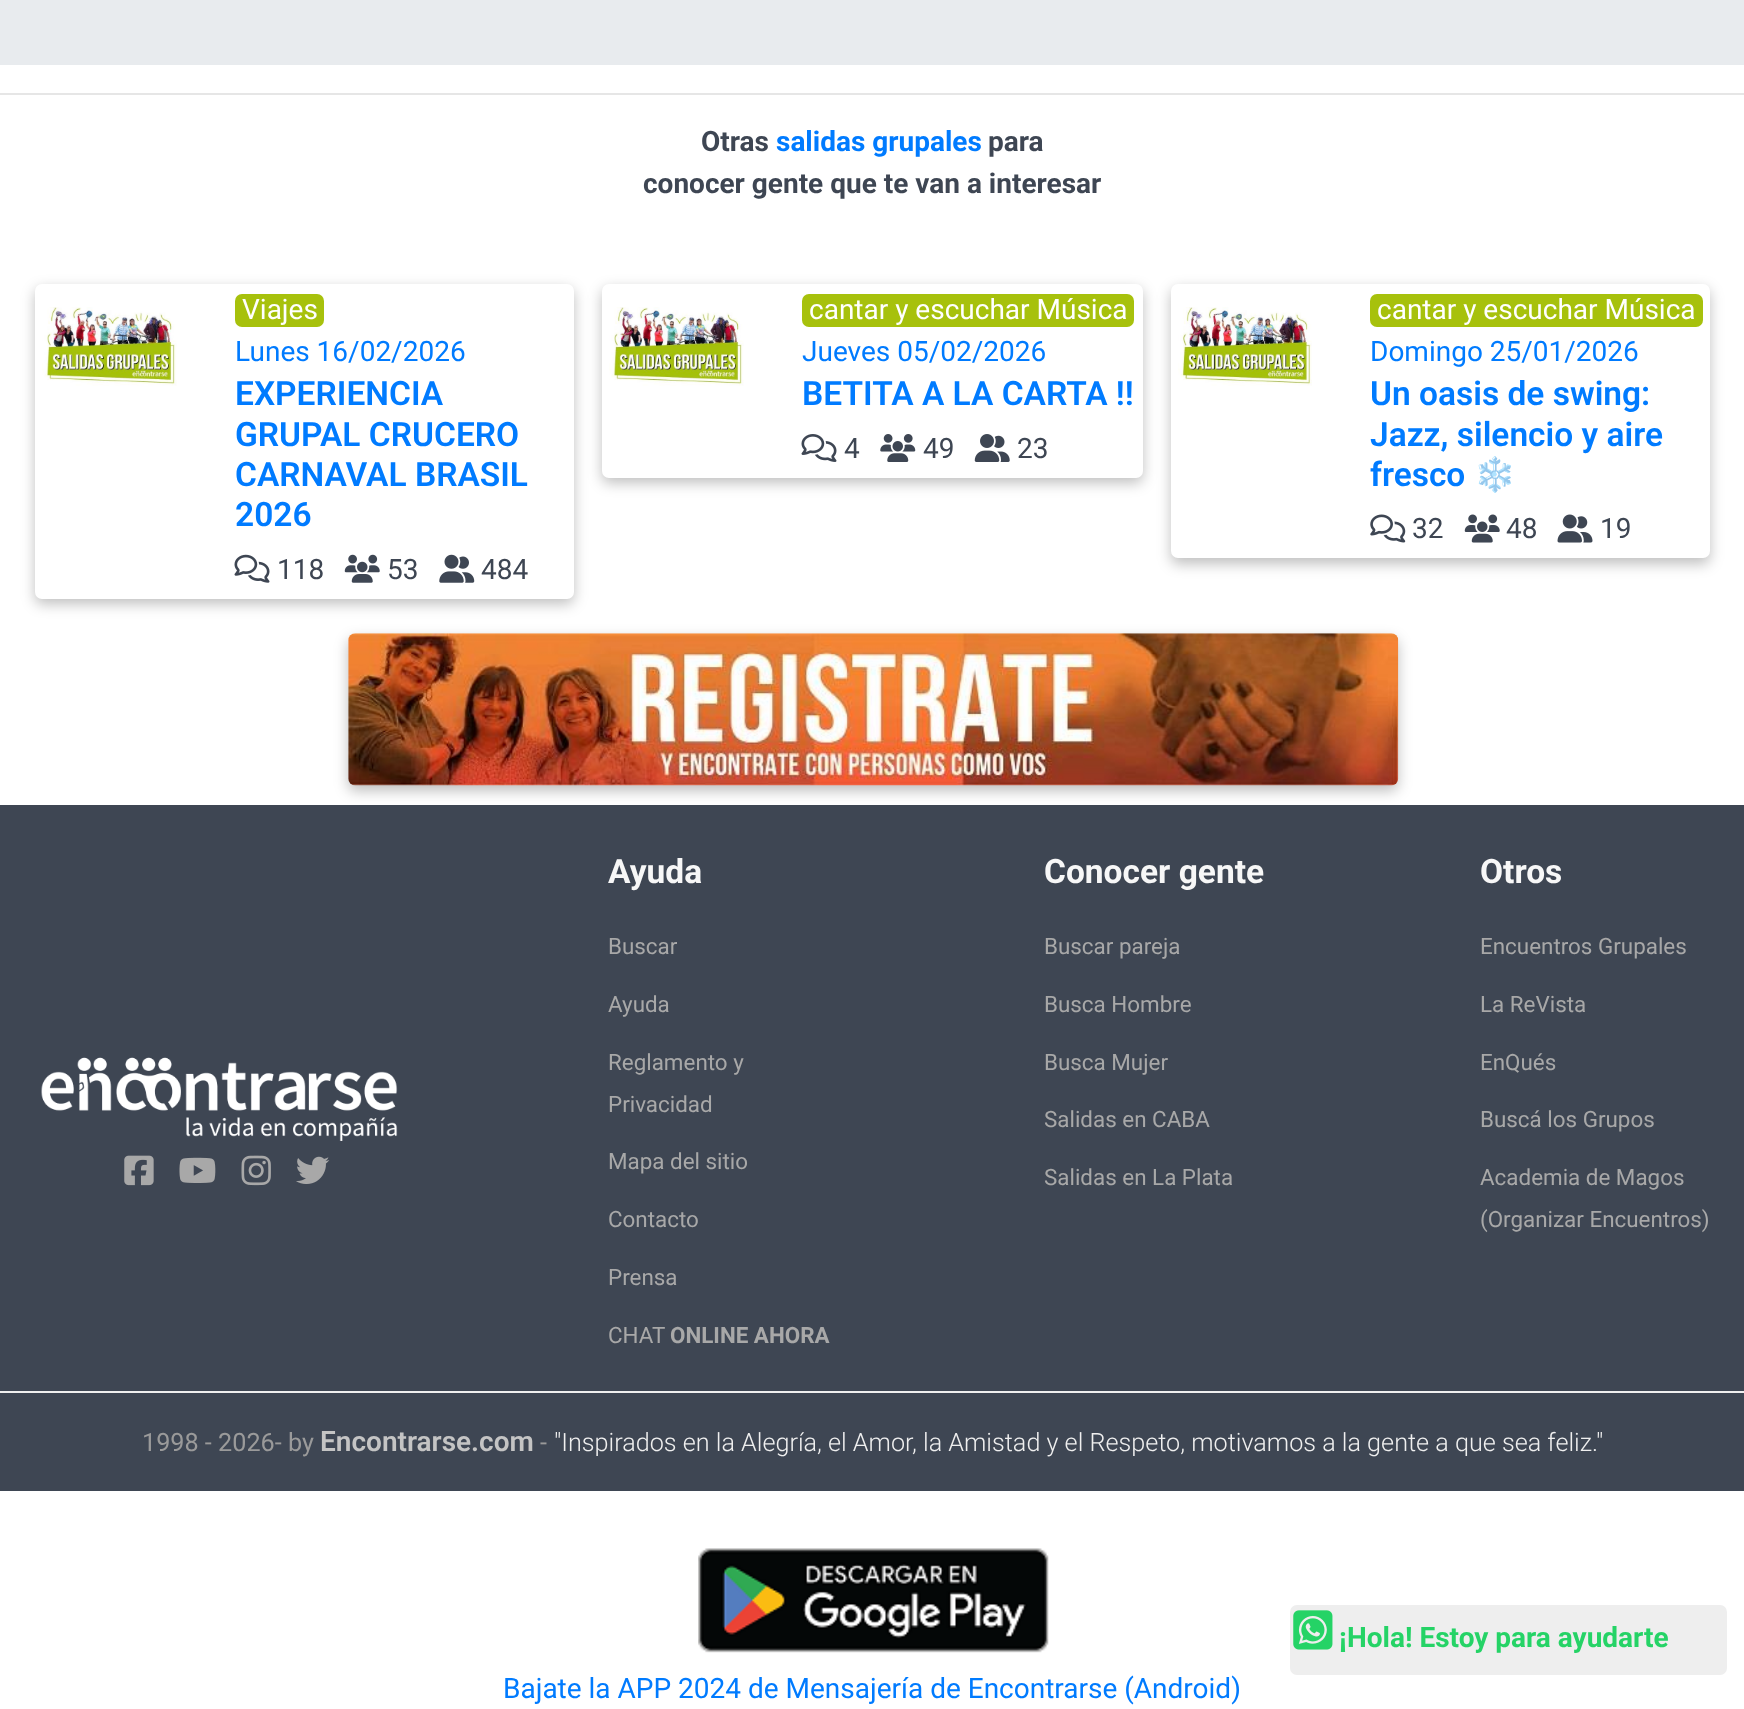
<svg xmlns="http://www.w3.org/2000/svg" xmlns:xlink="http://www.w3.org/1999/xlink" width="1744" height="1709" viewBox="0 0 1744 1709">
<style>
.cls-1{font:bold 28px Roboto;fill:#3e4653}
.cls-2{font:bold 28px Roboto;fill:#007bff}
.cls-3{font:28px Roboto;fill:#ffffff}
.cls-4{font:28px Roboto;fill:#007bff}
.cls-5{font:600 33.5px Roboto;fill:#007bff}
.cls-6{font:28px Roboto;fill:#3e4653}
.cls-7{font:bold 33.5px Noto Color Emoji;fill:#007bff}
.cls-8{font:bold 33.5px Roboto;fill:#f7f7f7}
.cls-9{font:22.4px Roboto;fill:#a8a8a8}
.cls-10{font:bold 22.4px Roboto;fill:#a8a8a8}
.cls-11{font:25.2px Roboto;fill:#9a9a9a}
.cls-12{font:600 28px Roboto;fill:#c4c4c4}
.cls-13{font:300 25.2px Roboto;fill:#efefef}
.cls-14{font:bold 28px Roboto;fill:#25d366}
</style>
<rect width="100%" height="100%" fill="#ffffff"/>
<rect fill="#e8ebee" x="0" y="0" width="1744" height="65"/>
<rect fill="#e6e6e6" x="0" y="93" width="1744" height="2"/>
<rect fill="#000000" fill-opacity="0.25" filter="blur(7px)" x="35" y="289" width="539" height="315" rx="7"/>
<rect fill="#ffffff" x="35" y="284" width="539" height="315" rx="7"/>
<image xlink:href="image0.png" x="42" y="307" width="135" height="79"/>
<rect fill="#a7c10c" x="235" y="294" width="89" height="33" rx="7"/>
<image xlink:href="image1.png" x="234" y="554" width="36" height="29"/>
<image xlink:href="image2.png" x="344" y="554" width="36" height="29"/>
<image xlink:href="image3.png" x="439" y="554" width="36" height="29"/>
<rect fill="#000000" fill-opacity="0.25" filter="blur(7px)" x="602" y="289" width="541" height="194" rx="7"/>
<rect fill="#ffffff" x="602" y="284" width="541" height="194" rx="7"/>
<image xlink:href="image4.png" x="609" y="307" width="135" height="79"/>
<rect fill="#a7c10c" x="802" y="294" width="332" height="33" rx="7"/>
<image xlink:href="image5.png" x="801" y="434" width="36" height="28"/>
<image xlink:href="image6.png" x="880" y="434" width="36" height="28"/>
<image xlink:href="image7.png" x="974" y="434" width="36" height="28"/>
<rect fill="#000000" fill-opacity="0.25" filter="blur(7px)" x="1171" y="289" width="539" height="275" rx="7"/>
<rect fill="#ffffff" x="1171" y="284" width="539" height="274" rx="7"/>
<image xlink:href="image8.png" x="1178" y="307" width="134" height="79"/>
<rect fill="#a7c10c" x="1370" y="294" width="333" height="33" rx="7"/>
<image xlink:href="image9.png" x="1370" y="514" width="36" height="29"/>
<image xlink:href="image10.png" x="1464" y="514" width="36" height="29"/>
<image xlink:href="image11.png" x="1557" y="514" width="36" height="29"/>
<rect fill="#3e4653" x="0" y="805" width="1744" height="586"/>
<rect fill="#000000" fill-opacity="0.25" filter="blur(7px)" x="348" y="639" width="1050" height="152" rx="7"/>
<image xlink:href="image12.png" x="348" y="633" width="1051" height="153"/>
<image xlink:href="image13.png" x="41" y="1057" width="357" height="84"/>
<image xlink:href="image14.png" x="124" y="1155" width="30" height="31"/>
<image xlink:href="image15.png" x="179" y="1157" width="37" height="26"/>
<image xlink:href="image16.png" x="241" y="1155" width="30" height="31"/>
<image xlink:href="image17.png" x="296" y="1156" width="34" height="28"/>
<rect fill="#3e4653" x="0" y="1393" width="1744" height="98"/>
<rect fill="#efefef" x="0" y="1391" width="1744" height="2"/>
<rect fill="#eeeeee" x="1290" y="1605" width="437" height="70" rx="7"/>
<image xlink:href="image18.png" x="1293" y="1610" width="40" height="40"/>
<image xlink:href="image19.png" x="698" y="1548" width="351" height="105"/>
<text class="cls-1" x="701" y="151">Otras</text>
<text class="cls-2" x="776" y="151">salidas grupales</text>
<text class="cls-1" x="988" y="151">para</text>
<text class="cls-1" x="643" y="193">conocer gente que te van a interesar</text>
<text class="cls-3" x="242" y="319">Viajes</text>
<text class="cls-4" x="235" y="361">Lunes 16/02/2026</text>
<text class="cls-5"><tspan x="235" y="405">EXPERIENCIA</tspan><tspan x="235" y="446">GRUPAL CRUCERO</tspan><tspan x="235" y="486">CARNAVAL BRASIL</tspan><tspan x="235" y="526">2026</tspan></text>
<text class="cls-6" x="277" y="579">118</text>
<text class="cls-6" x="387" y="579">53</text>
<text class="cls-6" x="481" y="579">484</text>
<text class="cls-3" x="809" y="319">cantar y escuchar Música</text>
<text class="cls-4" x="802" y="361">Jueves 05/02/2026</text>
<text class="cls-5" x="802" y="405">BETITA A LA CARTA !!</text>
<text class="cls-6" x="844" y="458">4</text>
<text class="cls-6" x="923" y="458">49</text>
<text class="cls-6" x="1017" y="458">23</text>
<text class="cls-3" x="1377" y="319">cantar y escuchar Música</text>
<text class="cls-4" x="1370" y="361">Domingo 25/01/2026</text>
<text class="cls-5"><tspan x="1370" y="405">Un oasis de swing:</tspan><tspan x="1370" y="446">Jazz, silencio y aire</tspan><tspan x="1370" y="486">fresco</tspan></text>
<text class="cls-7" x="1474" y="486">❄️</text>
<text class="cls-6" x="1412" y="538">32</text>
<text class="cls-6" x="1506" y="538">48</text>
<text class="cls-6" x="1600" y="538">19</text>
<text class="cls-8" x="608" y="883">Ayuda</text>
<text class="cls-9" x="608" y="954">Buscar</text>
<text class="cls-9" x="608" y="1012">Ayuda</text>
<text class="cls-9"><tspan x="608" y="1070">Reglamento y</tspan><tspan x="608" y="1112">Privacidad</tspan></text>
<text class="cls-9" x="608" y="1169">Mapa del sitio</text>
<text class="cls-9" x="608" y="1227">Contacto</text>
<text class="cls-9" x="608" y="1285">Prensa</text>
<text class="cls-9" x="608" y="1343">CHAT</text>
<text class="cls-10" x="670" y="1343">ONLINE AHORA</text>
<text class="cls-8" x="1044" y="883">Conocer gente</text>
<text class="cls-9" x="1044" y="954">Buscar pareja</text>
<text class="cls-9" x="1044" y="1012">Busca Hombre</text>
<text class="cls-9" x="1044" y="1070">Busca Mujer</text>
<text class="cls-9" x="1044" y="1127">Salidas en CABA</text>
<text class="cls-9" x="1044" y="1185">Salidas en La Plata</text>
<text class="cls-8" x="1480" y="883">Otros</text>
<text class="cls-9" x="1480" y="954">Encuentros Grupales</text>
<text class="cls-9" x="1480" y="1012">La ReVista</text>
<text class="cls-9" x="1480" y="1070">EnQués</text>
<text class="cls-9" x="1480" y="1127">Buscá los Grupos</text>
<text class="cls-9"><tspan x="1480" y="1185">Academia de Magos</tspan><tspan x="1480" y="1227">(Organizar Encuentros)</tspan></text>
<text class="cls-11" x="142" y="1451">1998 - 2026- by</text>
<text class="cls-12" x="320" y="1451">Encontrarse.com</text>
<text class="cls-11" x="540" y="1451">-</text>
<text class="cls-13" x="554" y="1451">"Inspirados en la Alegría, el Amor, la Amistad y el Respeto, motivamos a la gente a que sea feliz."</text>
<text class="cls-14" x="1339" y="1647">¡Hola! Estoy para ayudarte</text>
<text class="cls-4" x="503" y="1698">Bajate la APP 2024 de Mensajería de Encontrarse (Android)</text>
</svg>
